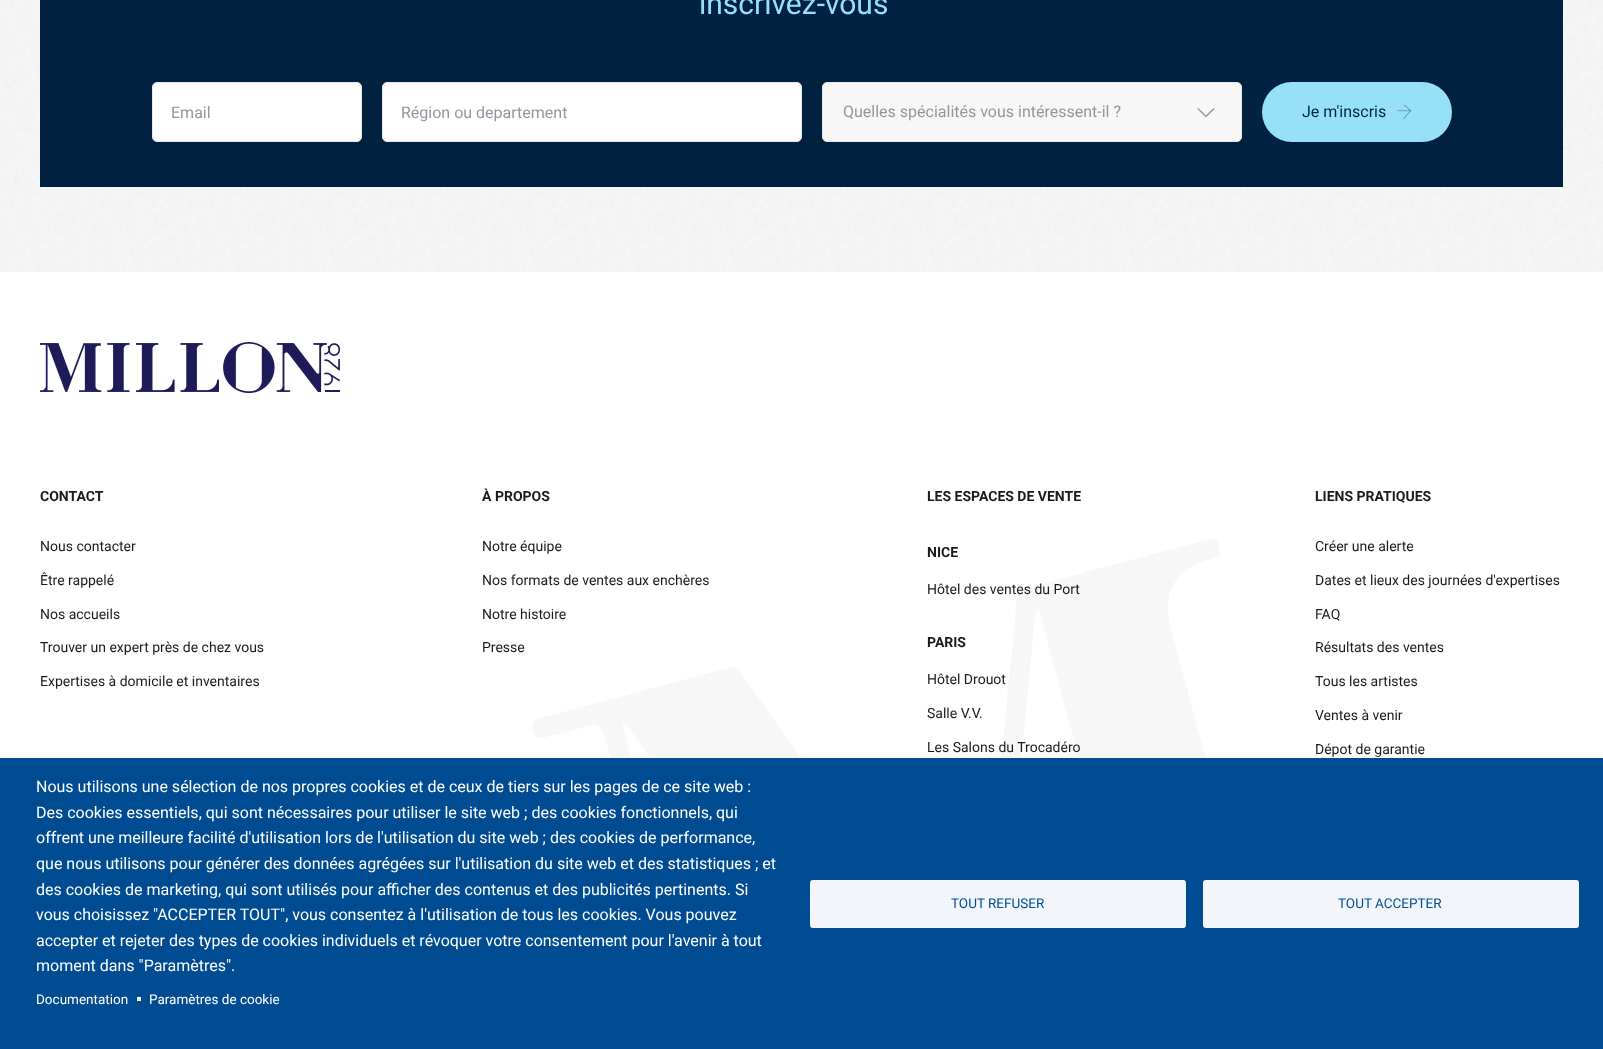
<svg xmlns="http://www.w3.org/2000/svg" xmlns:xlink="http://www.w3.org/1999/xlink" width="1603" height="1049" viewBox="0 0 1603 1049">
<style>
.cls-1{font:30px Roboto;fill:#96e0f8}
.cls-2{font:16px Roboto;fill:#9594a0}
.cls-3{font:16px Roboto;fill:#002140}
.cls-4{font:bold 14px Roboto;fill:#1a1a1a}
.cls-5{font:14px Roboto;fill:#1a1a1a}
.cls-6{font:16px Roboto;fill:#ffffff}
.cls-7{font:13.5px Roboto;fill:#ffffff}
.cls-8{font:13.5px Roboto;fill:#004c93}
</style>
<rect width="100%" height="100%" fill="#ffffff"/>
<image xlink:href="image0.png" x="0" y="0" width="1603" height="272"/>
<rect fill="#002140" x="40" y="0" width="1523" height="187"/>
<rect fill="#ffffff" stroke="#e6e8ed" x="152.5" y="82.5" width="209" height="59" rx="4.5"/>
<rect fill="#ffffff" stroke="#e6e8ed" x="382.5" y="82.5" width="419" height="59" rx="4.5"/>
<rect fill="#f7f7f7" stroke="#e6e8ed" x="822.5" y="82.5" width="419" height="59" rx="4.5"/>
<image xlink:href="image1.png" x="1197" y="108" width="18" height="10"/>
<rect fill="#96e0f8" x="1262" y="82" width="190" height="60" rx="30"/>
<image xlink:href="image2.png" x="1397" y="105" width="14" height="14"/>
<image xlink:href="image3.png" x="40" y="342" width="300" height="51"/>
<image xlink:href="image4.png" x="532" y="539" width="689" height="219"/>
<rect fill="#004c93" x="0" y="758" width="1603" height="291"/>
<rect fill="#ffffff" x="137" y="997" width="4" height="4"/>
<rect fill="#f2f6fa" stroke="#f2f6fa" stroke-width="2" x="811" y="881" width="374" height="46" rx="2"/>
<rect fill="#f2f6fa" stroke="#f2f6fa" stroke-width="2" x="1204" y="881" width="374" height="46" rx="2"/>
<text class="cls-1" x="699" y="14">inscrivez-vous</text>
<text class="cls-2" x="171" y="118">Email</text>
<text class="cls-2" x="401" y="118">Région ou departement</text>
<text class="cls-2" x="843" y="117">Quelles spécialités vous intéressent-il ?</text>
<text class="cls-3" x="1302" y="117">Je m'inscris</text>
<text class="cls-4" x="40" y="501">CONTACT</text>
<text class="cls-5" x="40" y="551">Nous contacter</text>
<text class="cls-5" x="40" y="585">Être rappelé</text>
<text class="cls-5" x="40" y="619">Nos accueils</text>
<text class="cls-5" x="40" y="652">Trouver un expert près de chez vous</text>
<text class="cls-5" x="40" y="686">Expertises à domicile et inventaires</text>
<text class="cls-4" x="482" y="501">À PROPOS</text>
<text class="cls-5" x="482" y="551">Notre équipe</text>
<text class="cls-5" x="482" y="585">Nos formats de ventes aux enchères</text>
<text class="cls-5" x="482" y="619">Notre histoire</text>
<text class="cls-5" x="482" y="652">Presse</text>
<text class="cls-4" x="927" y="501">LES ESPACES DE VENTE</text>
<text class="cls-4" x="927" y="557">NICE</text>
<text class="cls-5" x="927" y="594">Hôtel des ventes du Port</text>
<text class="cls-4" x="927" y="647">PARIS</text>
<text class="cls-5" x="927" y="684">Hôtel Drouot</text>
<text class="cls-5" x="927" y="718">Salle V.V.</text>
<text class="cls-5" x="927" y="752">Les Salons du Trocadéro</text>
<text class="cls-4" x="1315" y="501">LIENS PRATIQUES</text>
<text class="cls-5" x="1315" y="551">Créer une alerte</text>
<text class="cls-5" x="1315" y="585">Dates et lieux des journées d'expertises</text>
<text class="cls-5" x="1315" y="619">FAQ</text>
<text class="cls-5" x="1315" y="652">Résultats des ventes</text>
<text class="cls-5" x="1315" y="686">Tous les artistes</text>
<text class="cls-5" x="1315" y="720">Ventes à venir</text>
<text class="cls-5" x="1315" y="754">Dépot de garantie</text>
<text class="cls-6"><tspan x="36" y="792">Nous utilisons une sélection de nos propres cookies et de ceux de tiers sur les pages de ce site web :</tspan><tspan x="36" y="818">Des cookies essentiels, qui sont nécessaires pour utiliser le site web ; des cookies fonctionnels, qui</tspan><tspan x="36" y="843">offrent une meilleure facilité d'utilisation lors de l'utilisation du site web ; des cookies de performance,</tspan><tspan x="36" y="869">que nous utilisons pour générer des données agrégées sur l'utilisation du site web et des statistiques ; et</tspan><tspan x="36" y="895">des cookies de marketing, qui sont utilisés pour afficher des contenus et des publicités pertinents. Si</tspan><tspan x="36" y="920">vous choisissez "ACCEPTER TOUT", vous consentez à l'utilisation de tous les cookies. Vous pouvez</tspan><tspan x="36" y="946">accepter et rejeter des types de cookies individuels et révoquer votre consentement pour l'avenir à tout</tspan><tspan x="36" y="971">moment dans "Paramètres".</tspan></text>
<text class="cls-7" x="36" y="1004">Documentation</text>
<text class="cls-7" x="149" y="1004">Paramètres de cookie</text>
<text class="cls-8" x="951" y="908">TOUT REFUSER</text>
<text class="cls-8" x="1338" y="908">TOUT ACCEPTER</text>
</svg>
